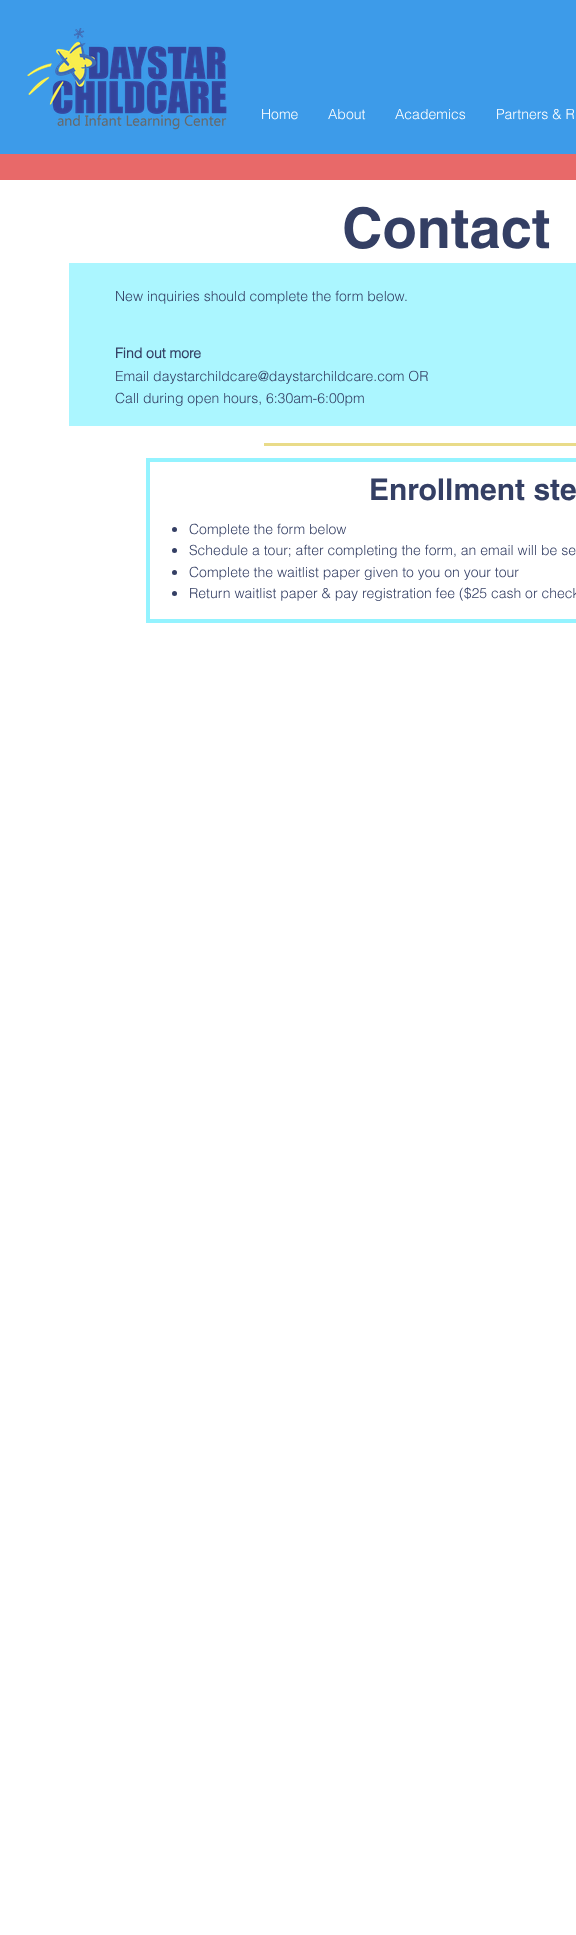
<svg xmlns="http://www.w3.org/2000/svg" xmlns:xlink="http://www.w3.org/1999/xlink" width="576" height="1935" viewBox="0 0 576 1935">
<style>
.cls-1{font:300 14px helvetica;fill:#ffffff}
.cls-2{font:bold 56px helvetica;fill:#343f64}
.cls-3{font:300 14px helvetica;fill:#343f64}
.cls-4{font:bold 14px 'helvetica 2';fill:#343f64}
.cls-5{font:bold 30px helvetica;fill:#343f64}
</style>
<rect width="100%" height="100%" fill="#ffffff"/>
<rect fill="#3d9be9" x="0" y="0" width="576" height="154"/>
<image xlink:href="image0.png" x="27" y="28" width="200" height="102"/>
<rect fill="#e86969" x="0" y="154" width="576" height="26"/>
<rect fill="#abf6ff" x="69" y="263" width="507" height="163"/>
<rect fill="#e9db89" x="264" y="443" width="312" height="3"/>
<rect fill="none" stroke="#94f3ff" stroke-width="4" x="148" y="460" width="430" height="161"/>
<circle fill="#343f64" cx="174.5" cy="529.5" r="2.5"/>
<circle fill="#343f64" cx="174.5" cy="550.5" r="2.5"/>
<circle fill="#343f64" cx="174.5" cy="572.5" r="2.5"/>
<circle fill="#343f64" cx="174.5" cy="593.5" r="2.5"/>
<text class="cls-1" x="261" y="119">Home</text>
<text class="cls-1" x="328" y="119">About</text>
<text class="cls-1" x="395" y="119">Academics</text>
<text class="cls-1" x="496" y="119">Partners &amp; R</text>
<text class="cls-2" x="342" y="248">Contact</text>
<text class="cls-3" x="115" y="301">New inquiries should complete the form below.</text>
<text class="cls-4" x="115" y="358">Find out more</text>
<text class="cls-3"><tspan x="115" y="381">Email daystarchildcare@daystarchildcare.com OR</tspan><tspan x="115" y="403">Call during open hours, 6:30am-6:00pm</tspan></text>
<text class="cls-5" x="369" y="500">Enrollment ste</text>
<text class="cls-3"><tspan x="189" y="534">Complete the form below</tspan><tspan x="189" y="555">Schedule a tour; after completing the form, an email will be se</tspan><tspan x="189" y="577">Complete the waitlist paper given to you on your tour</tspan><tspan x="189" y="598">Return waitlist paper &amp; pay registration fee ($25 cash or check</tspan></text>
</svg>
